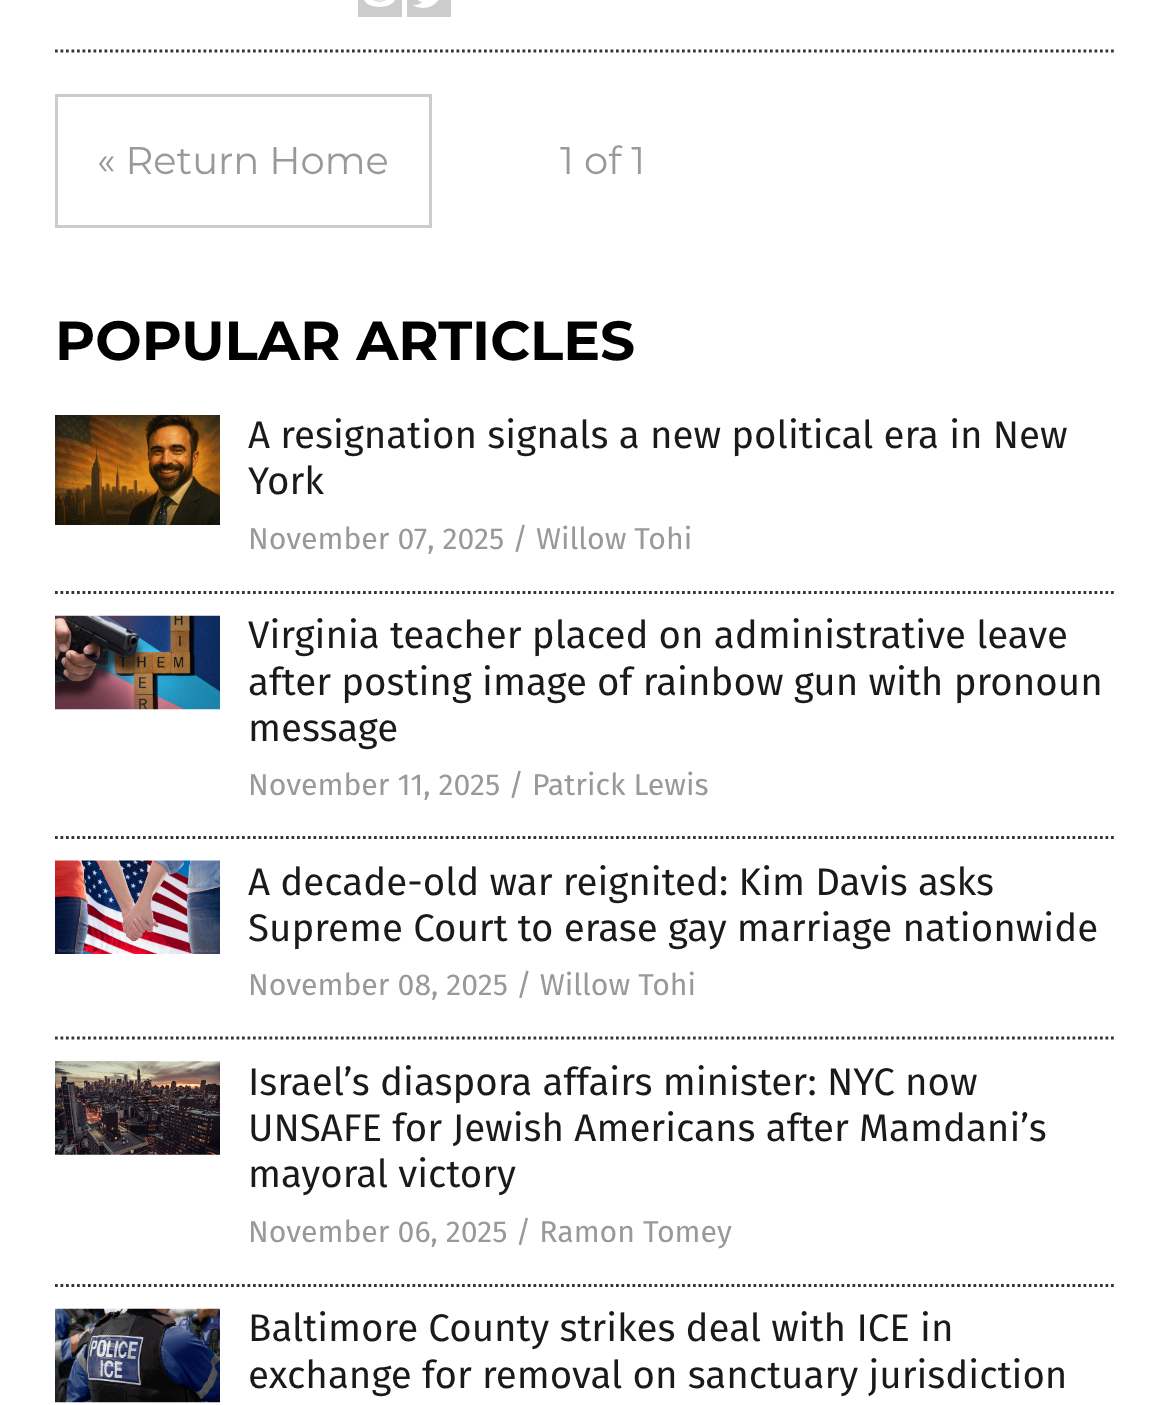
<svg xmlns="http://www.w3.org/2000/svg" xmlns:xlink="http://www.w3.org/1999/xlink" width="1168" height="1405" viewBox="0 0 1168 1405">
<style>
.cls-1{font:38.5px Montserrat;fill:#999999}
.cls-2{font:bold 55px Montserrat;fill:#000000}
.cls-3{font:38.5px Fira Sans;fill:#1a1a1a}
.cls-4{font:30.25px Fira Sans;fill:#999999}
</style>
<rect width="100%" height="100%" fill="#ffffff"/>
<path fill="none" stroke="#343434" stroke-width="2.8" stroke-dasharray="2.75 2.75" d="M55 51H1114"/>
<image xlink:href="image0.png" x="358" y="0" width="44" height="17"/>
<image xlink:href="image1.png" x="407" y="0" width="44" height="17"/>
<rect fill="none" stroke="#cccccc" stroke-width="3" x="56.5" y="95.5" width="374" height="131"/>
<path fill="none" stroke="#343434" stroke-width="2.8" stroke-dasharray="2.75 2.75" d="M55 592.5H1114"/>
<image xlink:href="image2.png" x="55" y="415" width="165" height="110"/>
<path fill="none" stroke="#343434" stroke-width="2.8" stroke-dasharray="2.75 2.75" d="M55 837.5H1114"/>
<image xlink:href="image3.png" x="55" y="615" width="165" height="95"/>
<path fill="none" stroke="#343434" stroke-width="2.8" stroke-dasharray="2.75 2.75" d="M55 1038H1114"/>
<image xlink:href="image4.png" x="55" y="860" width="165" height="94"/>
<path fill="none" stroke="#343434" stroke-width="2.8" stroke-dasharray="2.75 2.75" d="M55 1285.5H1114"/>
<image xlink:href="image5.png" x="55" y="1061" width="165" height="94"/>
<image xlink:href="image6.png" x="55" y="1308" width="165" height="95"/>
<text class="cls-1" x="97" y="174">« Return Home</text>
<text class="cls-1" x="560" y="174">1 of 1</text>
<text class="cls-2" x="55" y="360">POPULAR ARTICLES</text>
<text class="cls-3"><tspan x="248" y="448">A resignation signals a new political era in New</tspan><tspan x="248" y="494">York</tspan></text>
<text class="cls-4" x="248" y="549">November 07, 2025 / Willow Tohi</text>
<text class="cls-3"><tspan x="248" y="648">Virginia teacher placed on administrative leave</tspan><tspan x="248" y="695">after posting image of rainbow gun with pronoun</tspan><tspan x="248" y="741">message</tspan></text>
<text class="cls-4" x="248" y="795">November 11, 2025 / Patrick Lewis</text>
<text class="cls-3"><tspan x="248" y="895">A decade-old war reignited: Kim Davis asks</tspan><tspan x="248" y="941">Supreme Court to erase gay marriage nationwide</tspan></text>
<text class="cls-4" x="248" y="995">November 08, 2025 / Willow Tohi</text>
<text class="cls-3"><tspan x="248" y="1095">Israel’s diaspora affairs minister: NYC now</tspan><tspan x="248" y="1141">UNSAFE for Jewish Americans after Mamdani’s</tspan><tspan x="248" y="1187">mayoral victory</tspan></text>
<text class="cls-4" x="248" y="1242">November 06, 2025 / Ramon Tomey</text>
<text class="cls-3"><tspan x="248" y="1341">Baltimore County strikes deal with ICE in</tspan><tspan x="248" y="1388">exchange for removal on sanctuary jurisdiction</tspan></text>
</svg>
